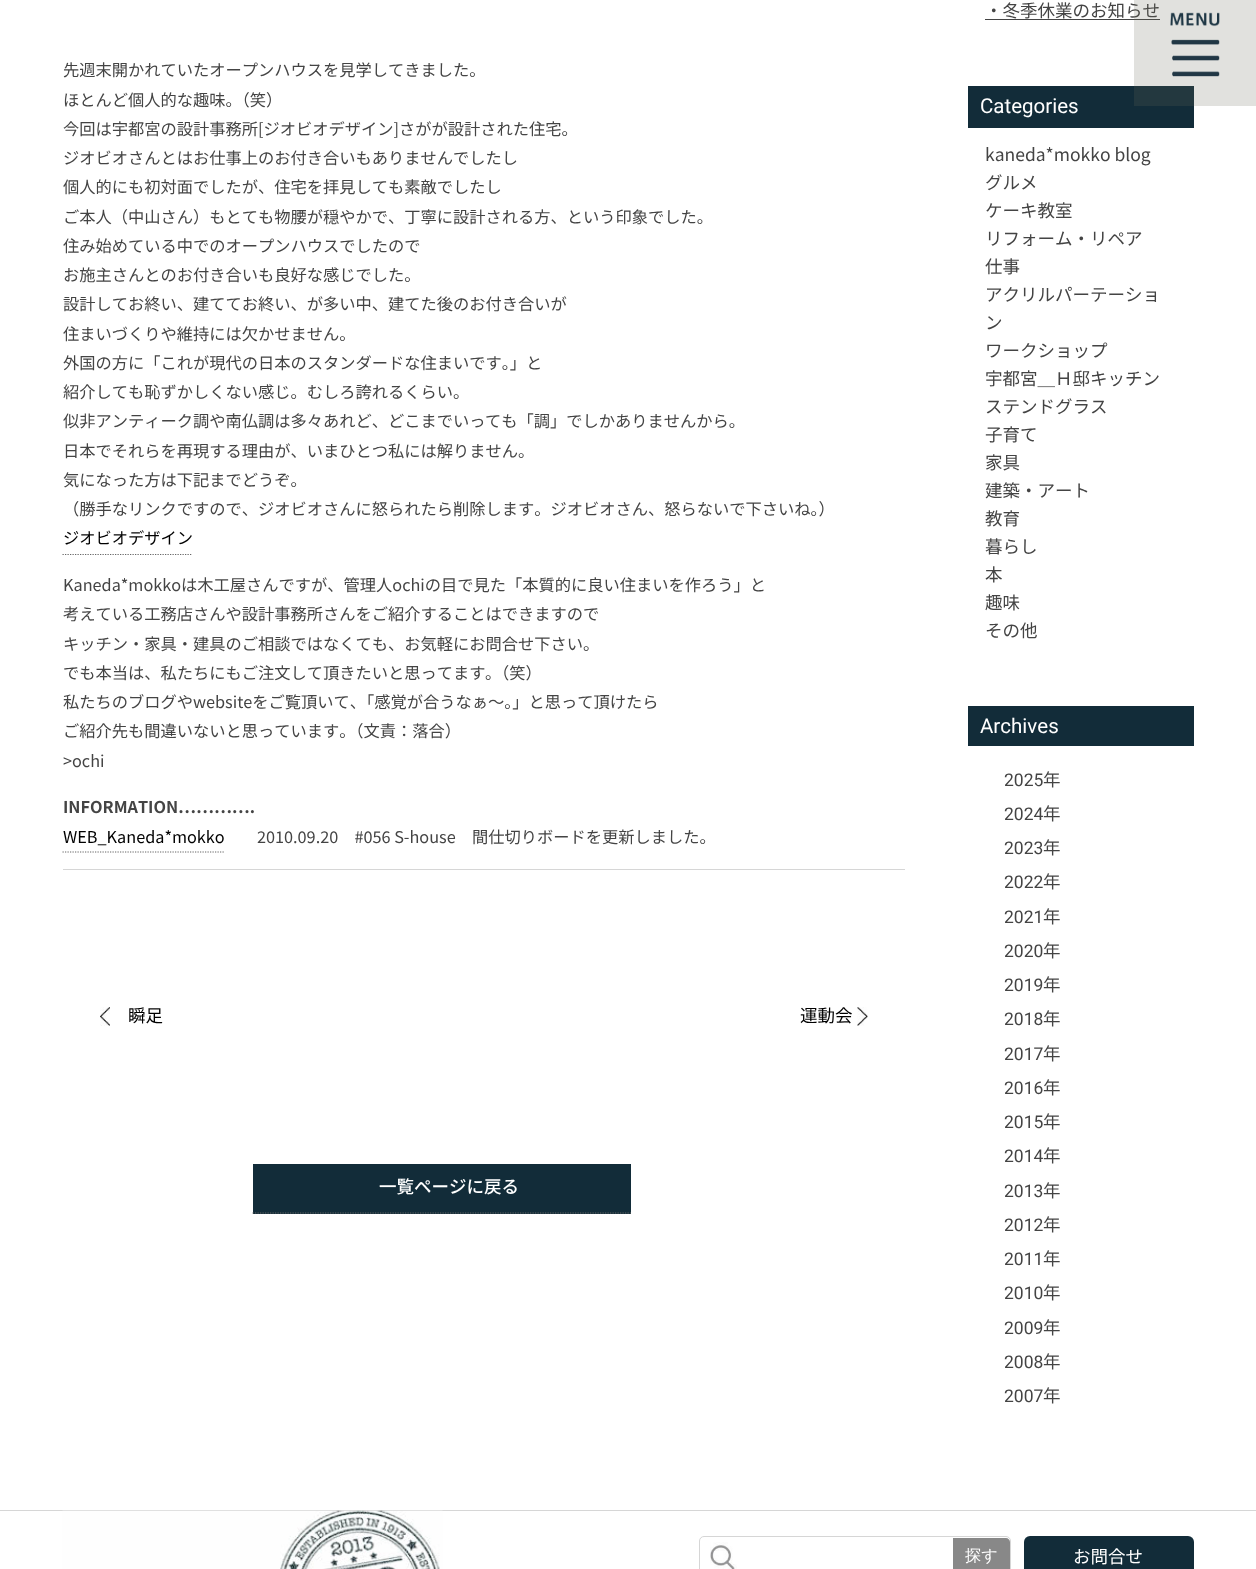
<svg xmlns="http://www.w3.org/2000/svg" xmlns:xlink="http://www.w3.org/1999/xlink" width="1256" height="1569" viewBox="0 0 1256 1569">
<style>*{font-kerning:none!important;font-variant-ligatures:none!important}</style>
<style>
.cls-1{font:16.25px Noto Sans JP;fill:#444444}
.cls-2{font:16.25px Noto Sans JP;fill:#000000}
.cls-3{font:bold 16.25px Noto Sans JP;fill:#444444}
.cls-4{font:17.5px Noto Sans JP;fill:#000000}
.cls-5{font:500 17.5px Noto Sans JP;fill:#ffffff}
.cls-6{font:17.5px Noto Sans JP;fill:#444444}
.cls-7{font:20.5px Roboto;fill:#ffffff}
.cls-8{font:17.5px Roboto;fill:#444444}
.cls-9{font:500 16.25px WenQuanYi Zen Hei;fill:#ffffff}
.cls-10{font:17.5px Noto Sans JP;fill:#ffffff}
</style>
<rect width="100%" height="100%" fill="#ffffff"/>
<path fill="none" stroke="#666666" stroke-width="1.2" stroke-dasharray="1.25 1.25" d="M62.5 554.5H192.5"/>
<path fill="none" stroke="#666666" stroke-width="1.2" stroke-dasharray="1.25 1.25" d="M62.5 852H225"/>
<rect fill="#d6d6d6" x="63" y="869" width="842" height="1"/>
<image xlink:href="image0.png" x="100" y="1007" width="10" height="19"/>
<image xlink:href="image1.png" x="857" y="1007" width="11" height="19"/>
<rect fill="#122c39" x="253" y="1164" width="378" height="50"/>
<path fill="none" stroke="#666666" stroke-width="1.2" stroke-dasharray="1.25 1.25" d="M252.5 1213H631"/>
<rect fill="#444444" x="985" y="19" width="175" height="1"/>
<rect fill="#122c39" x="968" y="86" width="226" height="42"/>
<rect fill="#122c39" x="968" y="706" width="226" height="40"/>
<rect fill="#d6d6d6" x="0" y="1510" width="1256" height="1"/>
<image xlink:href="image3.png" x="62" y="1510" width="381" height="59"/>
<rect fill="none" stroke="#d6d6d6" x="699.5" y="1536.5" width="311" height="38" rx="4.5"/>
<image xlink:href="image4.png" x="710" y="1542" width="27" height="27"/>
<path fill="#888888" d="M953 1538H1006C1008 1538 1010 1540 1010 1542V1569C1010 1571 1008 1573 1006 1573H953Z"/>
<rect fill="#122c39" x="1024" y="1536" width="170" height="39" rx="6"/>
<text class="cls-1"><tspan x="63" y="76">先週末開かれていたオープンハウスを見学してきました。</tspan><tspan x="63" y="106">ほとんど個人的な趣味。（笑）</tspan><tspan x="63" y="135">今回は宇都宮の設計事務所[ジオビオデザイン]さがが設計された住宅。</tspan><tspan x="63" y="164">ジオビオさんとはお仕事上のお付き合いもありませんでしたし</tspan><tspan x="63" y="193">個人的にも初対面でしたが、住宅を拝見しても素敵でしたし</tspan><tspan x="63" y="223">ご本人（中山さん）もとても物腰が穏やかで、丁寧に設計される方、という印象でした。</tspan><tspan x="63" y="252">住み始めている中でのオープンハウスでしたので</tspan><tspan x="63" y="281">お施主さんとのお付き合いも良好な感じでした。</tspan><tspan x="63" y="310">設計してお終い、建ててお終い、が多い中、建てた後のお付き合いが</tspan><tspan x="63" y="340">住まいづくりや維持には欠かせません。</tspan><tspan x="63" y="369">外国の方に「これが現代の日本のスタンダードな住まいです。」と</tspan><tspan x="63" y="398">紹介しても恥ずかしくない感じ。むしろ誇れるくらい。</tspan><tspan x="63" y="427">似非アンティーク調や南仏調は多々あれど、どこまでいっ</tspan></text>
<text class="cls-1" x="485" y="427">ても「調」でしかありませんから。</text>
<text class="cls-1"><tspan x="63" y="457">日本でそれらを再現する理由が、いまひとつ私には解りません。</tspan><tspan x="63" y="486">気になった方は下記までどうぞ。</tspan><tspan x="63" y="515">（勝手なリンクですので、ジオビオさんに怒られたら削除します。ジオビオさん、怒らないで下さいね。）</tspan></text>
<text class="cls-2" x="63" y="544">ジオビオデザイン</text>
<text class="cls-1"><tspan x="63" y="591">Kaneda*mokkoは木工屋さんですが、管理人ochiの目で見た「本質的に良い住まいを作ろう」と</tspan><tspan x="63" y="620">考えている工務店さんや設計事務所さんをご紹介することはできますので</tspan><tspan x="63" y="650">キッチン・家具・建具のご相談ではなくても、お気軽にお問合せ下さい。</tspan><tspan x="63" y="679">でも本当は、私たちにもご注文して頂きたいと思ってます</tspan></text>
<text class="cls-1" x="485" y="679">。（笑）</text>
<text class="cls-1"><tspan x="63" y="708">私たちのブログやwebsiteをご覧頂いて、「感覚が合うなぁ〜。」と思って頂けたら</tspan><tspan x="63" y="737">ご紹介先も間違いないと思っています。（文責：落合）</tspan><tspan x="63" y="767">&gt;ochi</tspan></text>
<text class="cls-3" x="63" y="813">INFORMATION………….</text>
<text class="cls-2" x="63" y="843">WEB_Kaneda*mokko</text>
<text class="cls-1" x="257" y="843">2010.09.20　#056 S-house　間仕切りボードを更新しました。</text>
<text class="cls-4" x="128" y="1022">瞬足</text>
<text class="cls-4" x="800" y="1022">運動会</text>
<text class="cls-5" x="379" y="1193">一覧ページに戻る</text>
<text class="cls-6" x="985" y="17">・冬季休業のお知らせ</text>
<text class="cls-7" x="980" y="113">Categories</text>
<text class="cls-6"><tspan x="985" y="161">kaneda*mokko blog</tspan><tspan x="985" y="189">グルメ</tspan><tspan x="985" y="217">ケーキ教室</tspan><tspan x="985" y="245">リフォーム・リペア</tspan><tspan x="985" y="273">仕事</tspan><tspan x="985" y="301">アクリルパーテーショ</tspan><tspan x="985" y="329">ン</tspan><tspan x="985" y="357">ワークショップ</tspan><tspan x="985" y="385">宇都宮＿Ｈ邸キッチン</tspan><tspan x="985" y="413">ステンドグラス</tspan><tspan x="985" y="441">子育て</tspan><tspan x="985" y="469">家具</tspan><tspan x="985" y="497">建築・アート</tspan><tspan x="985" y="525">教育</tspan><tspan x="985" y="553">暮らし</tspan><tspan x="985" y="581">本</tspan><tspan x="985" y="609">趣味</tspan><tspan x="985" y="637">その他</tspan></text>
<text class="cls-7" x="980" y="733">Archives</text>
<text class="cls-8" x="1004" y="786">2025</text>
<text class="cls-6" x="1043" y="786">年</text>
<text class="cls-8" x="1004" y="820">2024</text>
<text class="cls-6" x="1043" y="820">年</text>
<text class="cls-8" x="1004" y="854">2023</text>
<text class="cls-6" x="1043" y="854">年</text>
<text class="cls-8" x="1004" y="888">2022</text>
<text class="cls-6" x="1043" y="888">年</text>
<text class="cls-8" x="1004" y="923">2021</text>
<text class="cls-6" x="1043" y="923">年</text>
<text class="cls-8" x="1004" y="957">2020</text>
<text class="cls-6" x="1043" y="957">年</text>
<text class="cls-8" x="1004" y="991">2019</text>
<text class="cls-6" x="1043" y="991">年</text>
<text class="cls-8" x="1004" y="1025">2018</text>
<text class="cls-6" x="1043" y="1025">年</text>
<text class="cls-8" x="1004" y="1060">2017</text>
<text class="cls-6" x="1043" y="1060">年</text>
<text class="cls-8" x="1004" y="1094">2016</text>
<text class="cls-6" x="1043" y="1094">年</text>
<text class="cls-8" x="1004" y="1128">2015</text>
<text class="cls-6" x="1043" y="1128">年</text>
<text class="cls-8" x="1004" y="1162">2014</text>
<text class="cls-6" x="1043" y="1162">年</text>
<text class="cls-8" x="1004" y="1197">2013</text>
<text class="cls-6" x="1043" y="1197">年</text>
<text class="cls-8" x="1004" y="1231">2012</text>
<text class="cls-6" x="1043" y="1231">年</text>
<text class="cls-8" x="1004" y="1265">2011</text>
<text class="cls-6" x="1043" y="1265">年</text>
<text class="cls-8" x="1004" y="1299">2010</text>
<text class="cls-6" x="1043" y="1299">年</text>
<text class="cls-8" x="1004" y="1334">2009</text>
<text class="cls-6" x="1043" y="1334">年</text>
<text class="cls-8" x="1004" y="1368">2008</text>
<text class="cls-6" x="1043" y="1368">年</text>
<text class="cls-8" x="1004" y="1402">2007</text>
<text class="cls-6" x="1043" y="1402">年</text>
<rect fill="#676759" fill-opacity="0.2" x="1134" y="0" width="122" height="106"/>
<image xlink:href="image2.png" x="1170" y="12" width="50" height="65"/>
<text class="cls-9" x="965" y="1561">探す</text>
<text class="cls-10" x="1073" y="1563">お問合せ</text>
</svg>
